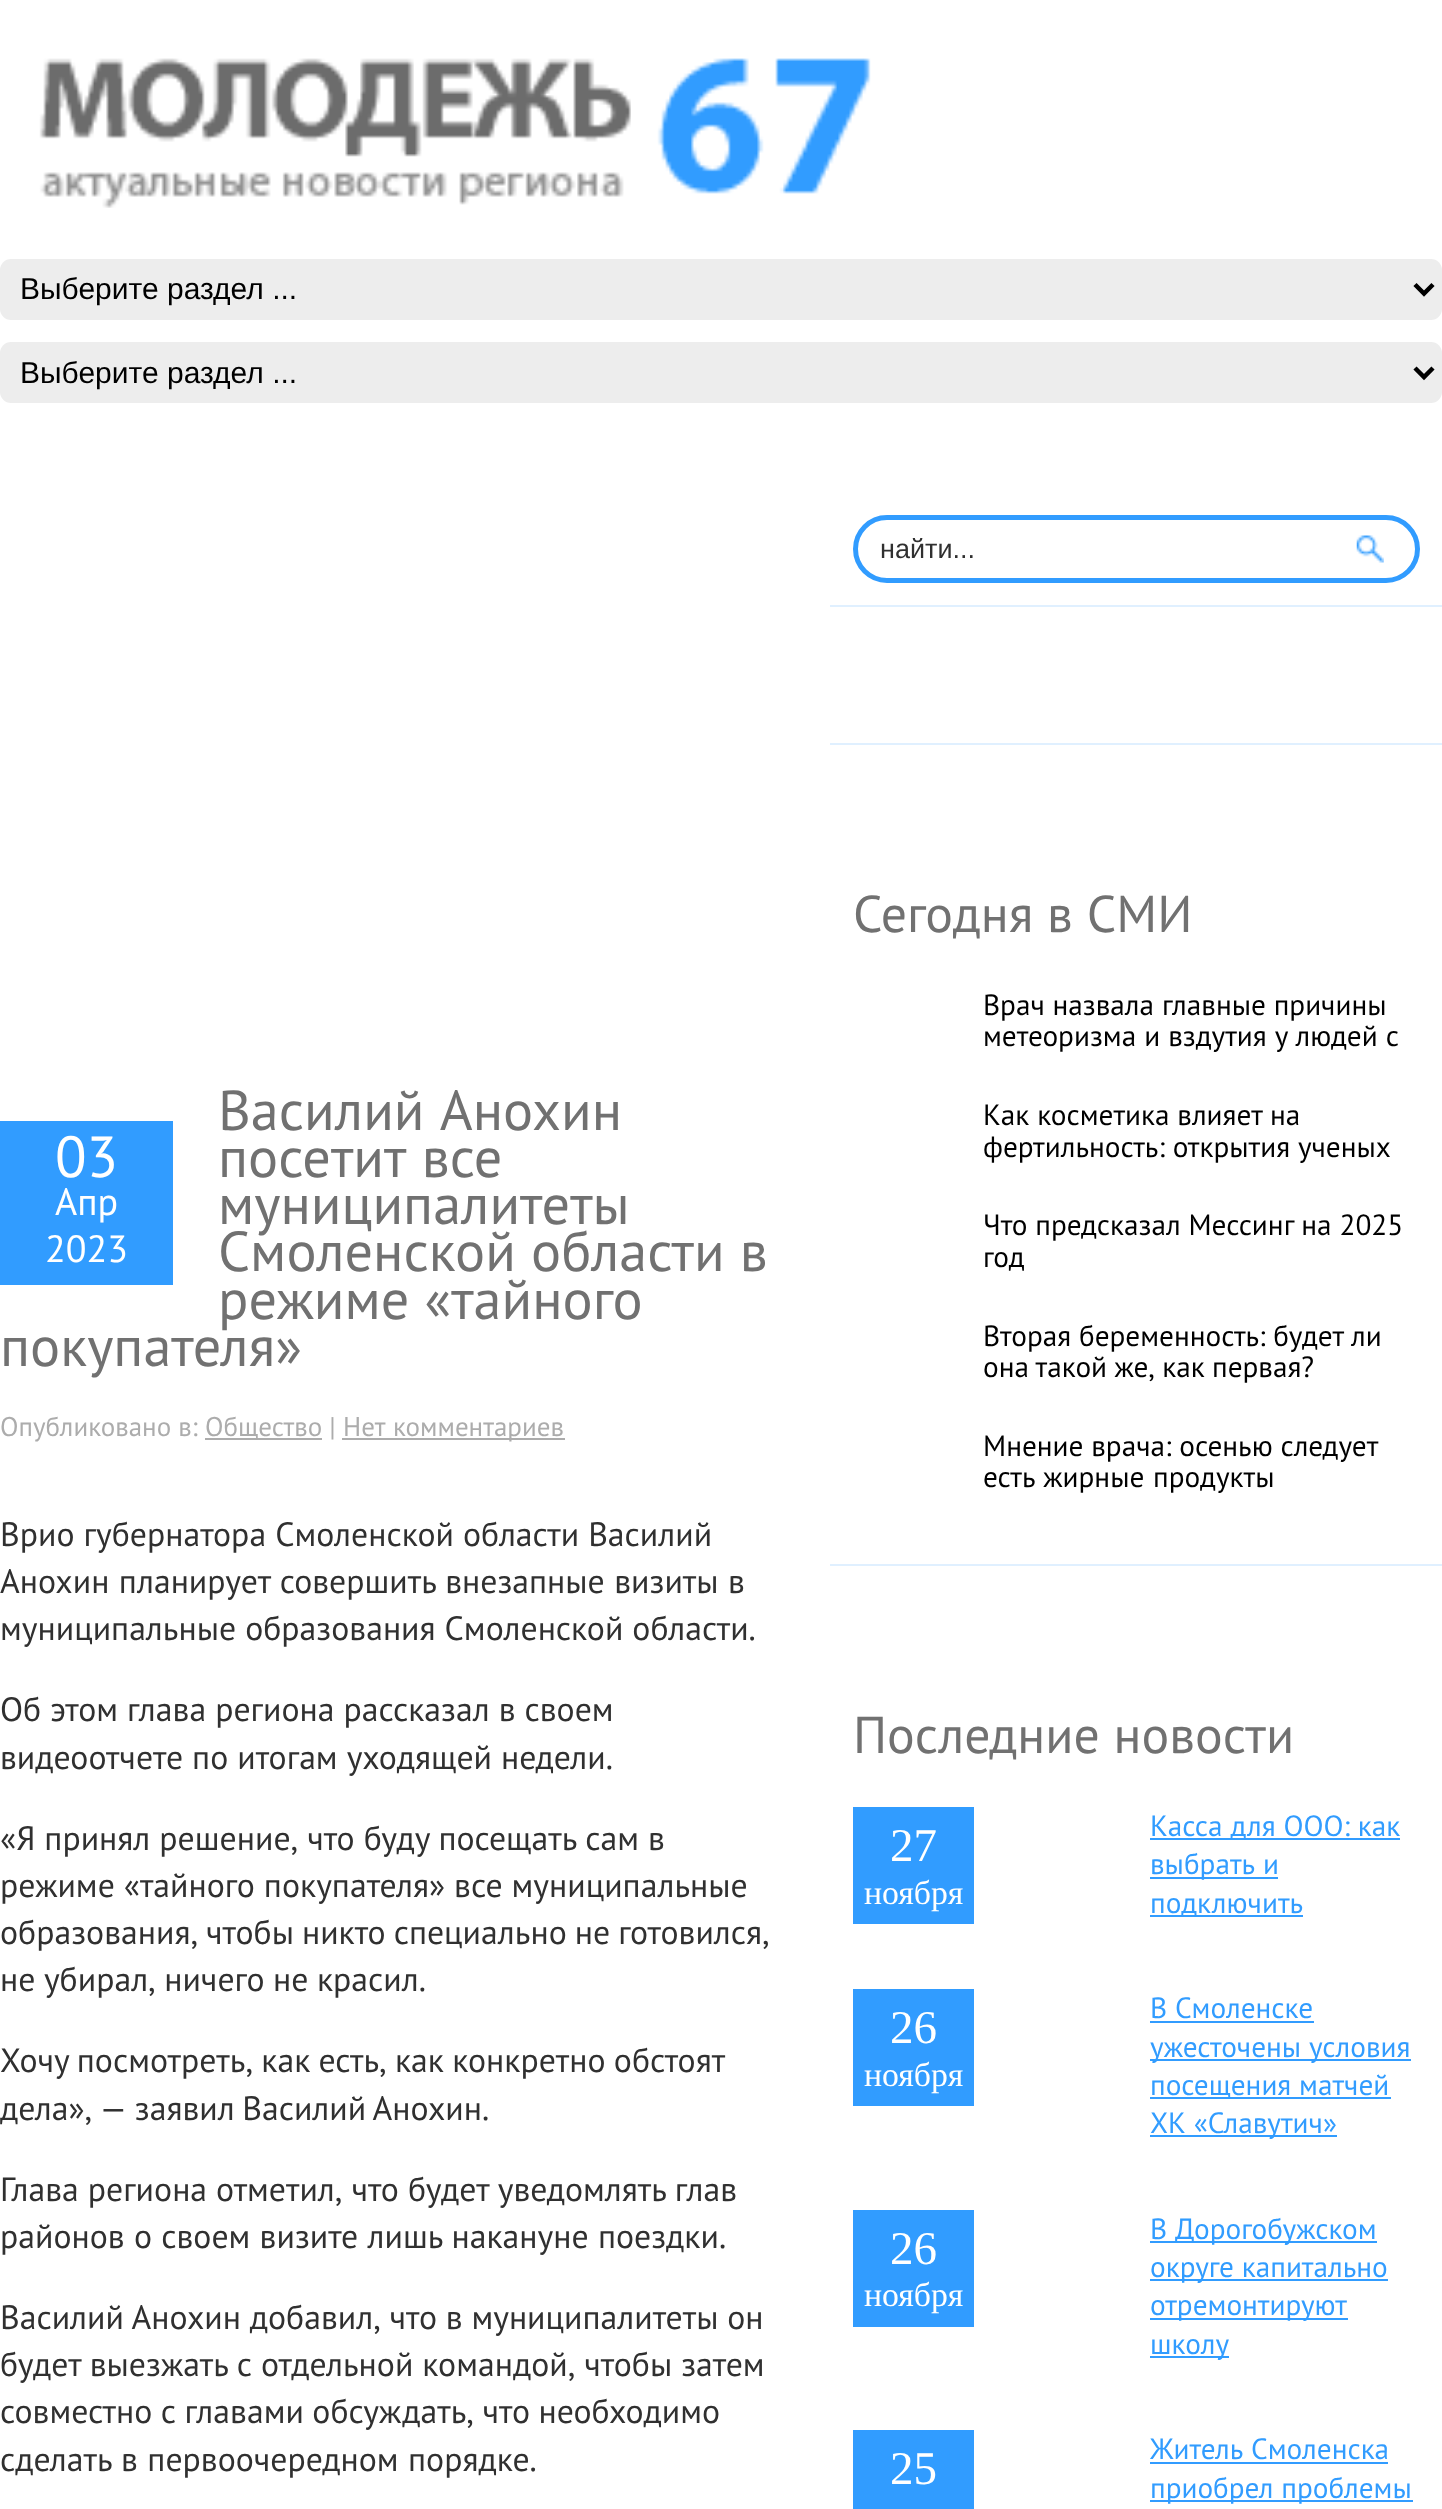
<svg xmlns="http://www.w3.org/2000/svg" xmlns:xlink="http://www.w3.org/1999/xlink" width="1442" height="2509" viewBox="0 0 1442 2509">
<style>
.cls-1{font:30px Liberation Sans;fill:#000000}
.cls-2{font:56.25px PT Sans;fill:#717171}
.cls-3{font:27px PT Sans;fill:#acacac}
.cls-4{font:58px PT Sans;fill:#ffffff}
.cls-5{font:38px PT Sans;fill:#ffffff}
.cls-6{font:33.75px PT Sans;fill:#303030}
.cls-7{font:27px Liberation Sans;fill:#303030}
.cls-8{font:51.75px PT Sans;fill:#717171}
.cls-9{font:29.25px PT Sans;fill:#000000}
.cls-10{font:47px Liberation Serif;fill:#ffffff}
.cls-11{font:33.75px Liberation Serif;fill:#ffffff}
.cls-12{font:29.25px PT Sans;fill:#319cff}
</style>
<rect width="100%" height="100%" fill="#ffffff"/>
<image xlink:href="image0.png" x="39" y="58" width="832" height="150"/>
<rect fill="#ededed" x="0" y="259" width="1442" height="61" rx="11"/>
<path fill="none" stroke="#000000" stroke-width="4.5" d="M1415 284.5L1424 293.5L1433 284.5"/>
<rect fill="#ededed" x="0" y="342" width="1442" height="61" rx="11"/>
<path fill="none" stroke="#000000" stroke-width="4.5" d="M1415 368L1424 377L1433 368"/>
<rect fill="#acacac" x="205" y="1438" width="117" height="2"/>
<rect fill="#acacac" x="342" y="1438" width="223" height="2"/>
<rect fill="#319cff" x="0" y="1121" width="173" height="164"/>
<rect fill="#e0f0ff" x="830" y="605" width="612" height="2"/>
<rect fill="none" stroke="#319cff" stroke-width="5" x="855.5" y="517.5" width="562" height="63" rx="31.5"/>
<image xlink:href="image1.png" x="1356" y="535" width="28" height="28"/>
<rect fill="#e0f0ff" x="830" y="743" width="612" height="2"/>
<rect fill="#e0f0ff" x="830" y="1564" width="612" height="2"/>
<rect fill="#319cff" x="853" y="1807" width="121" height="117"/>
<rect fill="#319cff" x="1150" y="1838" width="250" height="2"/>
<rect fill="#319cff" x="1150" y="1877" width="128" height="2"/>
<rect fill="#319cff" x="1150" y="1915" width="153" height="2"/>
<rect fill="#319cff" x="853" y="1989" width="121" height="117"/>
<rect fill="#319cff" x="1150" y="2021" width="164" height="2"/>
<rect fill="#319cff" x="1150" y="2059" width="261" height="2"/>
<rect fill="#319cff" x="1150" y="2097" width="241" height="2"/>
<rect fill="#319cff" x="1150" y="2135" width="187" height="2"/>
<rect fill="#319cff" x="853" y="2210" width="121" height="117"/>
<rect fill="#319cff" x="1150" y="2241" width="227" height="2"/>
<rect fill="#319cff" x="1150" y="2279" width="238" height="2"/>
<rect fill="#319cff" x="1150" y="2318" width="198" height="2"/>
<rect fill="#319cff" x="1150" y="2356" width="79" height="2"/>
<rect fill="#319cff" x="853" y="2430" width="121" height="79"/>
<rect fill="#319cff" x="1150" y="2462" width="238" height="2"/>
<rect fill="#319cff" x="1150" y="2500" width="263" height="2"/>
<text class="cls-1" x="20" y="299">Выберите раздел ...</text>
<text class="cls-1" x="20" y="383">Выберите раздел ...</text>
<text class="cls-2"><tspan x="218" y="1130" word-spacing="2">Василий Анохин</tspan><tspan x="218" y="1177" word-spacing="2">посетит все</tspan><tspan x="218" y="1224">муниципалитеты</tspan><tspan x="218" y="1271">Смоленской области в</tspan><tspan x="218" y="1319">режиме «тайного</tspan></text>
<text class="cls-2" x="0" y="1366">покупателя»</text>
<text class="cls-3" x="0" y="1436">Опубликовано в:</text>
<text class="cls-3" x="205" y="1436">Общество |</text>
<text class="cls-3" x="343" y="1436" word-spacing="1">Нет комментариев</text>
<text class="cls-4" x="55" y="1177">03</text>
<text class="cls-5" x="55" y="1215">Апр</text>
<text class="cls-5" x="45" y="1262">2023</text>
<text class="cls-6"><tspan x="0" y="1546">Врио губернатора Смоленской области Василий</tspan><tspan x="0" y="1593" word-spacing="0.5">Анохин планирует совершить внезапные визиты в</tspan><tspan x="0" y="1640">муниципальные образования Смоленской области.</tspan></text>
<text class="cls-6"><tspan x="0" y="1721">Об этом глава региона рассказал в своем</tspan><tspan x="0" y="1769">видеоотчете по итогам уходящей недели.</tspan></text>
<text class="cls-6"><tspan x="0" y="1850">«Я принял решение, что буду посещать сам в</tspan><tspan x="0" y="1897">режиме «тайного покупателя» все муниципальные</tspan><tspan x="0" y="1944" word-spacing="-1">образования, чтобы никто специально не готовился,</tspan><tspan x="0" y="1991" word-spacing="-0.5">не убирал, ничего не красил.</tspan></text>
<text class="cls-6"><tspan x="0" y="2072" word-spacing="-0.75">Хочу посмотреть, как есть, как конкретно обстоят</tspan><tspan x="0" y="2120" word-spacing="-1.5">дела», — заявил Василий Анохин.</tspan></text>
<text class="cls-6"><tspan x="0" y="2201">Глава региона отметил, что будет уведомлять глав</tspan><tspan x="0" y="2248" word-spacing="0.25">районов о своем визите лишь накануне поездки.</tspan></text>
<text class="cls-6"><tspan x="0" y="2329" word-spacing="-0.25">Василий Анохин добавил, что в муниципалитеты он</tspan><tspan x="0" y="2376">будет выезжать с отдельной командой, чтобы затем</tspan><tspan x="0" y="2423" word-spacing="-0.5">совместно с главами обсуждать, что необходимо</tspan><tspan x="0" y="2471" word-spacing="0.5">сделать в первоочередном порядке.</tspan></text>
<text class="cls-7" x="880" y="558">найти...</text>
<text class="cls-8" x="853" y="932">Сегодня в СМИ</text>
<text class="cls-9"><tspan x="983" y="1015">Врач назвала главные причины</tspan><tspan x="983" y="1046" word-spacing="0.25">метеоризма и вздутия у людей с</tspan></text>
<text class="cls-9"><tspan x="983" y="1125">Как косметика влияет на</tspan><tspan x="983" y="1157">фертильность: открытия ученых</tspan></text>
<text class="cls-9"><tspan x="983" y="1235">Что предсказал Мессинг на 2025</tspan><tspan x="983" y="1267">год</tspan></text>
<text class="cls-9"><tspan x="983" y="1346">Вторая беременность: будет ли</tspan><tspan x="983" y="1377" word-spacing="-0.5">она такой же, как первая?</tspan></text>
<text class="cls-9"><tspan x="983" y="1456">Мнение врача: осенью следует</tspan><tspan x="983" y="1487" word-spacing="1">есть жирные продукты</tspan></text>
<text class="cls-8" x="853" y="1753">Последние новости</text>
<text class="cls-10" x="890" y="1861">27</text>
<text class="cls-11" x="864" y="1904">ноября</text>
<text class="cls-12"><tspan x="1150" y="1836">Касса для ООО: как</tspan><tspan x="1150" y="1874" word-spacing="1">выбрать и</tspan><tspan x="1150" y="1913">подключить</tspan></text>
<text class="cls-10" x="890" y="2043">26</text>
<text class="cls-11" x="864" y="2086">ноября</text>
<text class="cls-12"><tspan x="1150" y="2018">В Смоленске</tspan><tspan x="1150" y="2057">ужесточены условия</tspan><tspan x="1150" y="2095">посещения матчей</tspan><tspan x="1150" y="2133">ХК «Славутич»</tspan></text>
<text class="cls-10" x="890" y="2264">26</text>
<text class="cls-11" x="864" y="2306">ноября</text>
<text class="cls-12"><tspan x="1150" y="2239" word-spacing="1">В Дорогобужском</tspan><tspan x="1150" y="2277">округе капитально</tspan><tspan x="1150" y="2315">отремонтируют</tspan><tspan x="1150" y="2354">школу</tspan></text>
<text class="cls-10" x="890" y="2484">25</text>
<text class="cls-12"><tspan x="1150" y="2459" word-spacing="1">Житель Смоленска</tspan><tspan x="1150" y="2498">приобрел проблемы</tspan></text>
</svg>
